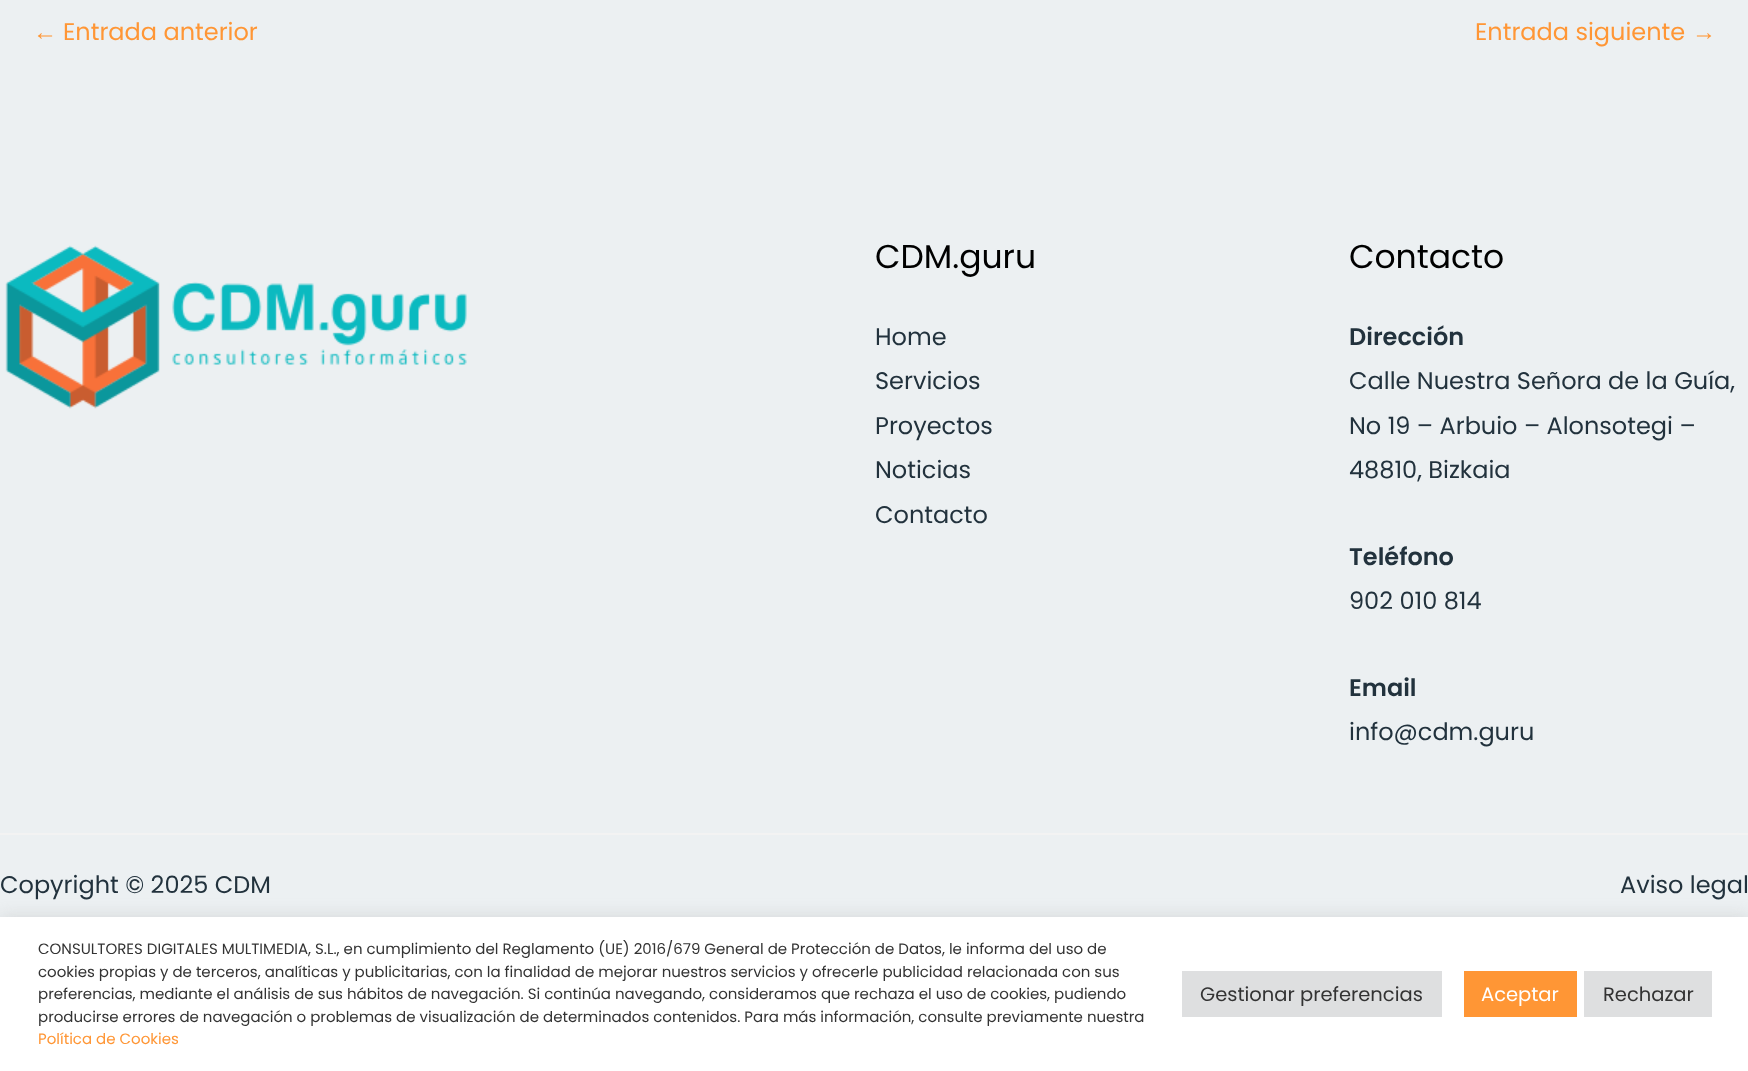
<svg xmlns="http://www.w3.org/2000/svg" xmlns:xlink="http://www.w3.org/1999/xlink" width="1748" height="1071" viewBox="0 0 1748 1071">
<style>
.cls-1{font:24px Liberation Sans;fill:#ff9635}
.cls-2{font:24px Poppins;fill:#ff9635}
.cls-3{font:33px Poppins;fill:#000000}
.cls-4{font:24px Poppins;fill:#22323d}
.cls-5{font:600 24px Poppins;fill:#22323d}
.cls-6{font:15px Poppins;fill:#333333}
.cls-7{font:15px Poppins;fill:#ff9635}
.cls-8{font:19.5px Poppins;fill:#333333}
.cls-9{font:19.5px Poppins;fill:#ffffff}
</style>
<rect width="100%" height="100%" fill="#ecf0f2"/>
<image xlink:href="image0.png" x="5" y="245" width="462" height="164"/>
<rect fill="#f3f3f3" x="0" y="833" width="1748" height="2"/>
<rect fill="#acabab" fill-opacity="0.3" filter="blur(7.5px)" x="0" y="915" width="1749" height="155"/>
<rect fill="#ffffff" x="0" y="917" width="1748" height="154"/>
<rect fill="#dedfe0" x="1182" y="971" width="260" height="46"/>
<rect fill="#ff9635" x="1464" y="971" width="113" height="46"/>
<rect fill="#dedfe0" x="1584" y="971" width="128" height="46"/>
<text class="cls-1" x="33" y="40">←</text>
<text class="cls-2" x="63" y="40">Entrada anterior</text>
<text class="cls-2" x="1475" y="40">Entrada siguiente</text>
<text class="cls-1" x="1692" y="40">→</text>
<text class="cls-3" x="875" y="268">CDM.guru</text>
<text class="cls-4"><tspan x="875" y="345">Home</tspan><tspan x="875" y="389">Servicios</tspan><tspan x="875" y="434">Proyectos</tspan><tspan x="875" y="478">Noticias</tspan><tspan x="875" y="523">Contacto</tspan></text>
<text class="cls-3" x="1349" y="268">Contacto</text>
<text class="cls-5" x="1349" y="345">Dirección</text>
<text class="cls-4"><tspan x="1349" y="389">Calle Nuestra Señora de la Guía,</tspan><tspan x="1349" y="434">No 19 – Arbuio – Alonsotegi –</tspan><tspan x="1349" y="478">48810, Bizkaia</tspan></text>
<text class="cls-5" x="1349" y="565">Teléfono</text>
<text class="cls-4" x="1349" y="609">902 010 814</text>
<text class="cls-5" x="1349" y="696">Email</text>
<text class="cls-4" x="1349" y="740">info@cdm.guru</text>
<text class="cls-4" x="0" y="893">Copyright © 2025 CDM</text>
<text class="cls-4" x="1620" y="893">Aviso legal</text>
<text class="cls-6"><tspan x="38" y="954">CONSULTORES DIGITALES MULTIMEDIA, S.L., en cumplimiento del Reglamento (UE) 2016/679 General de Protección de Datos, le informa del uso de</tspan><tspan x="38" y="977">cookies propias y de terceros, analíticas y publicitarias, con la finalidad de mejorar nuestros servicios y ofrecerle publicidad relacionada con sus</tspan><tspan x="38" y="999">preferencias, mediante el análisis de sus hábitos de navegación. Si continúa navegando, consideramos que rechaza el uso de cookies, pudiendo</tspan><tspan x="38" y="1022">producirse errores de navegación o problemas de visualización de determinados contenidos. Para más información, consulte previamente nuestra</tspan></text>
<text class="cls-7" x="38" y="1044">Política de Cookies</text>
<text class="cls-8" x="1200" y="1001">Gestionar preferencias</text>
<text class="cls-9" x="1481" y="1001">Aceptar</text>
<text class="cls-8" x="1603" y="1001">Rechazar</text>
</svg>
